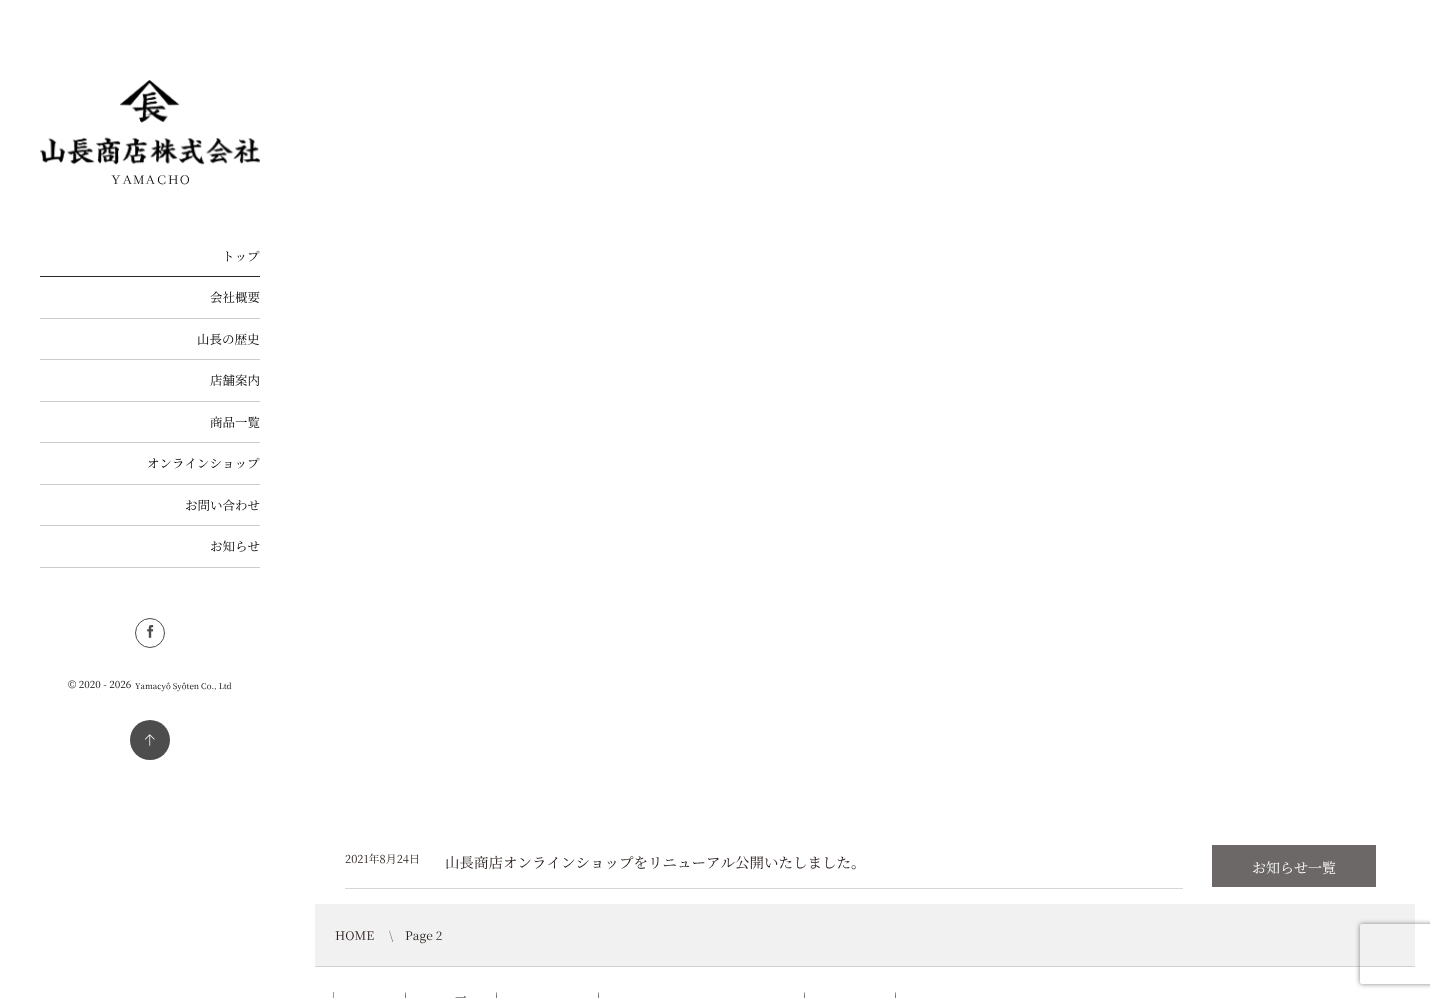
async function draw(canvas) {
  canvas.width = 1430;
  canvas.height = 998;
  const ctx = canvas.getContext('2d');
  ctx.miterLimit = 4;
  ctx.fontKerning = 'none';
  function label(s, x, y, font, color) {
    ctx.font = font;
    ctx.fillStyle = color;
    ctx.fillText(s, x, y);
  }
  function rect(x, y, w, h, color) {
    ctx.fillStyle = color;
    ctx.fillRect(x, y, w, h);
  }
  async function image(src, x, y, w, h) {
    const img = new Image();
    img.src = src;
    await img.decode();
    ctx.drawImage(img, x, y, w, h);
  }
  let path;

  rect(0, 0, 1430, 998, '#fff');
  await image('assets/img1.png', 40, 80, 220, 85);
  label('ＹＡＭＡＣＨＯ', 110, 184, '200 11.5px Noto Serif JP', '#000');
  label('トップ', 222, 261, '200 12.5px Noto Serif JP', '#000');
  rect(40, 276, 220, 1, '#292929');
  rect(40, 318, 220, 1, '#ccc');
  label('会社概要', 210, 302, '200 12.5px Noto Serif JP', '#000');
  rect(40, 359, 220, 1, '#ccc');
  label('山長の歴史', 197, 344, '200 12.5px Noto Serif JP', '#000');
  rect(40, 401, 220, 1, '#ccc');
  label('店舗案内', 210, 385, '200 12.5px Noto Serif JP', '#000');
  rect(40, 442, 220, 1, '#ccc');
  label('商品一覧', 210, 427, '200 12.5px Noto Serif JP', '#000');
  rect(40, 484, 220, 1, '#ccc');
  label('オンラインショップ', 147, 468, '200 12.5px Noto Serif JP', '#000');
  rect(40, 525, 220, 1, '#ccc');
  label('お問い合わせ', 185, 510, '200 12.5px Noto Serif JP', '#000');
  rect(40, 567, 220, 1, '#ccc');
  label('お知らせ', 210, 551, '200 12.5px Noto Serif JP', '#000');
  ctx.beginPath();
  ctx.arc(150, 633, 14.5, 0, 2 * Math.PI);
  ctx.strokeStyle = '#4d4d4d';
  ctx.stroke();
  await image('assets/img2.png', 147, 625, 7, 13);
  label('© 2020 - 2026', 68, 688, '200 10px Noto Serif JP', '#000');
  label('Yamacyô Syôten Co., Ltd', 135, 689, '200 8px Noto Serif JP', '#000');
  ctx.fillStyle = '#4d4d4d';
  ctx.beginPath();
  ctx.arc(150, 740, 20, 0, 2 * Math.PI);
  ctx.fill();
  await image('assets/img3.png', 144, 734, 11, 12);
  rect(345, 888, 838, 1, '#d6d6d6');
  label('2021年8月24日', 345, 863, '200 11px Noto Serif JP', '#231815');
  label('山長商店オンラインショップをリニューアル公開いたしました。', 445, 868, '200 14.5px Noto Serif JP', '#231815');
  rect(1212, 845, 164, 42, '#6d6868');
  label('お知らせ一覧', 1252, 873, '200 14px Noto Serif JP', '#fff');
  rect(315, 904, 1100, 62, '#f1f1f1');
  label('HOME', 335, 940, '200 12px Noto Serif JP', '#231815');
  label('\\', 389, 940, '200 12px Noto Serif JP', '#655d5b');
  label('Page 2', 405, 940, '200 12px Noto Serif JP', '#231815');
  ctx.save();
  path = new Path2D('M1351 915H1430V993H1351ZM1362 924H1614C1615 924 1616 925 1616 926V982C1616 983 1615 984 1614 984H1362C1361 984 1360 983 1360 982V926C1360 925 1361 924 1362 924Z');
  ctx.clip(path, 'evenodd');
  ctx.fillStyle = '#808080';
  ctx.filter = 'blur(2.5px)';
  ctx.beginPath();
  ctx.roundRect(1360, 924, 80, 60, 2);
  ctx.fill();
  ctx.filter = 'none';
  ctx.restore();
  rect(315, 966, 1100, 1, '#23181533');
  rect(333, 992, 1, 6, '#999');
  ctx.fillStyle = '#7b7473';
  ctx.beginPath();
  ctx.ellipse(405.5, 997, 0.5, 5, 0, 0, 2 * Math.PI);
  ctx.fill();
  label('一', 455, 1002, '200 11.5px Noto Serif JP', '#231815');
  ctx.fillStyle = '#7b7473';
  ctx.beginPath();
  ctx.ellipse(496.5, 997, 0.5, 5, 0, 0, 2 * Math.PI);
  ctx.fill();
  ctx.beginPath();
  ctx.ellipse(598.5, 997, 0.5, 5, 0, 0, 2 * Math.PI);
  ctx.fill();
  ctx.beginPath();
  ctx.ellipse(804.5, 997, 0.5, 5, 0, 0, 2 * Math.PI);
  ctx.fill();
  ctx.beginPath();
  ctx.ellipse(895.5, 997, 0.5, 5, 0, 0, 2 * Math.PI);
  ctx.fill();
}

draw(document.querySelector('canvas'));
